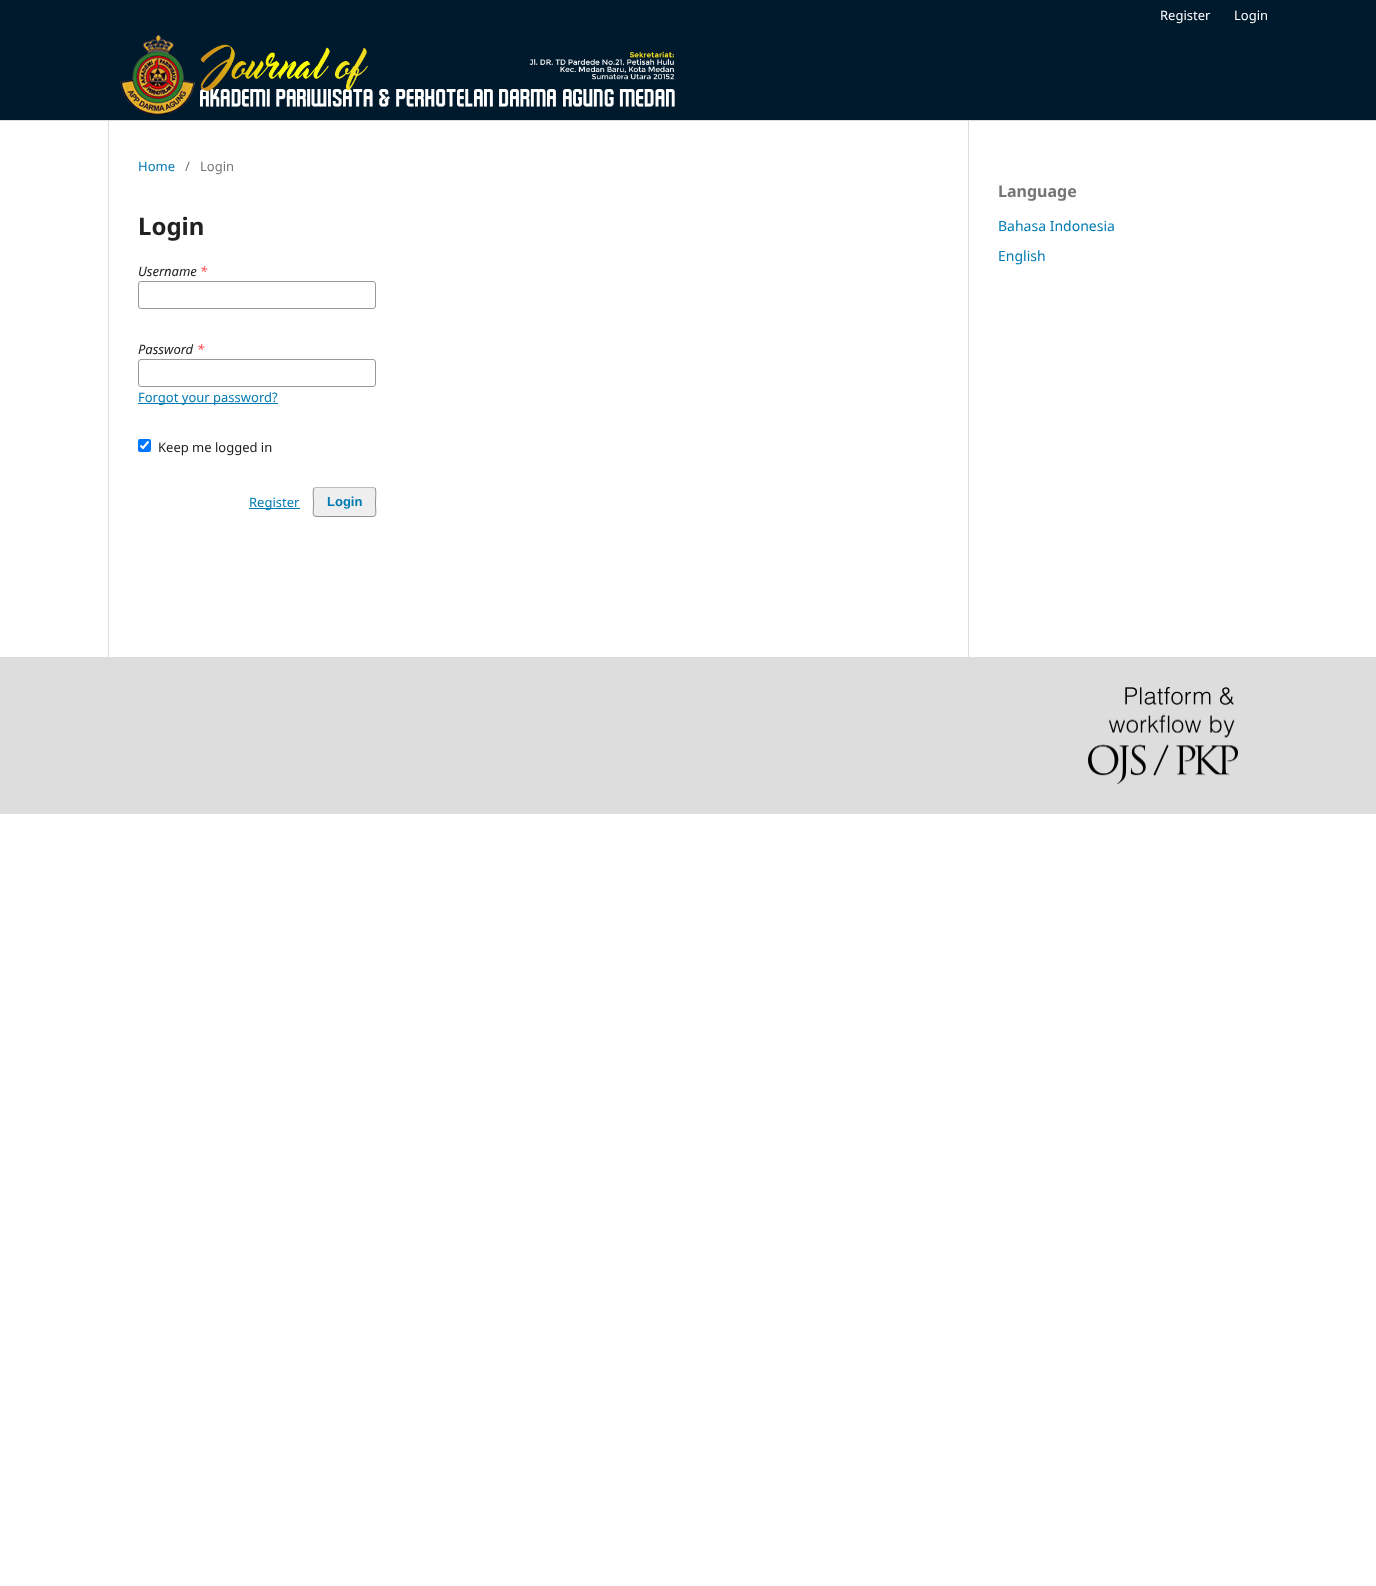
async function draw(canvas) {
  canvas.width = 1376;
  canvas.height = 1586;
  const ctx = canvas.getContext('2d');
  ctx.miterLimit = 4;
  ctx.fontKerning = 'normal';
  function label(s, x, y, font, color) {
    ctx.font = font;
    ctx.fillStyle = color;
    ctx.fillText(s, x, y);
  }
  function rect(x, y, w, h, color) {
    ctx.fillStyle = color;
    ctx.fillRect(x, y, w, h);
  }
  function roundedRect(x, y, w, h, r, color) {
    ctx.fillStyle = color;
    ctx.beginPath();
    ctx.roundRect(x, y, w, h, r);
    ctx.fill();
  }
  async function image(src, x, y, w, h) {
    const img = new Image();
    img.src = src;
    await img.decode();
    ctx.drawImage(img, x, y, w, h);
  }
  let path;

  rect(0, 0, 1376, 1586, '#fff');
  rect(0, 0, 1376, 120, '#001a2d');
  rect(0, 120, 1376, 1, '#ddd');
  label('Register', 1160, 20, '13px Noto Sans', '#fff');
  label('Login', 1234, 20, '13px Noto Sans', '#fff');
  await image('assets/img1.png', 120, 35, 555, 80);
  rect(108, 121, 1, 536, '#ddd');
  label('Home', 138, 171, '13px Noto Sans', '#007ab2');
  label('/', 185, 171, '13px Noto Sans', '#757575');
  label('Login', 200, 171, '13px Noto Sans', '#757575');
  label('Login', 138, 235, 'bold 24px Noto Sans', '#212121');
  label('Username', 138, 276, 'italic 13px Noto Sans', '#212121');
  label('*', 200, 276, 'italic 13px Noto Sans', '#ff4040');
  ctx.beginPath();
  ctx.roundRect(138.5, 281.5, 237, 27, 2.5);
  ctx.strokeStyle = '#999';
  ctx.stroke();
  label('Password', 138, 354, 'italic 13px Noto Sans', '#212121');
  label('*', 197, 354, 'italic 13px Noto Sans', '#ff4040');
  ctx.beginPath();
  ctx.roundRect(138.5, 359.5, 237, 27, 2.5);
  ctx.stroke();
  rect(138, 403, 140, 1, '#007ab2');
  label('Forgot your password?', 138, 402, '13px Noto Sans', '#007ab2');
  roundedRect(138, 439, 13, 13, 2, '#0075ff');
  path = new Path2D('M140.5 445.5L143 448L148.5 441.5');
  ctx.strokeStyle = '#fff';
  ctx.lineWidth = 2.1;
  ctx.stroke(path);
  label('Keep me logged in', 158, 452, '13px Noto Sans', '#212121');
  rect(249, 508, 51, 1, '#007ab2');
  label('Register', 249, 507, '13px Noto Sans', '#007ab2');
  roundedRect(313, 487, 63, 30, 3, '#eee');
  path = new Path2D('M314 488L316 487.5H373L375 488');
  ctx.strokeStyle = '#bbb';
  ctx.lineWidth = 1;
  ctx.stroke(path);
  path = new Path2D('M375 488C376.5 490 375.5 499.5 375.5 502C375.5 518 379 516.5 363.5 516.5H325.5C310 516.5 313.5 518 313.5 502C313.5 499.5 312.5 490 314 488');
  ctx.strokeStyle = '#00000066';
  ctx.stroke(path);
  label('Login', 327, 506, 'bold 13px Liberation Sans', '#007ab2');
  rect(968, 121, 1, 536, '#ddd');
  label('Language', 998, 197, 'bold 16px Noto Sans', '#757575');
  label('Bahasa Indonesia', 998, 231, '14px Noto Sans', '#007ab2');
  label('English', 998, 261, '14px Noto Sans', '#007ab2');
  rect(0, 657, 1376, 157, '#ddd');
  await image('assets/img2.png', 1088, 687, 150, 97);
}

draw(document.querySelector('canvas'));
